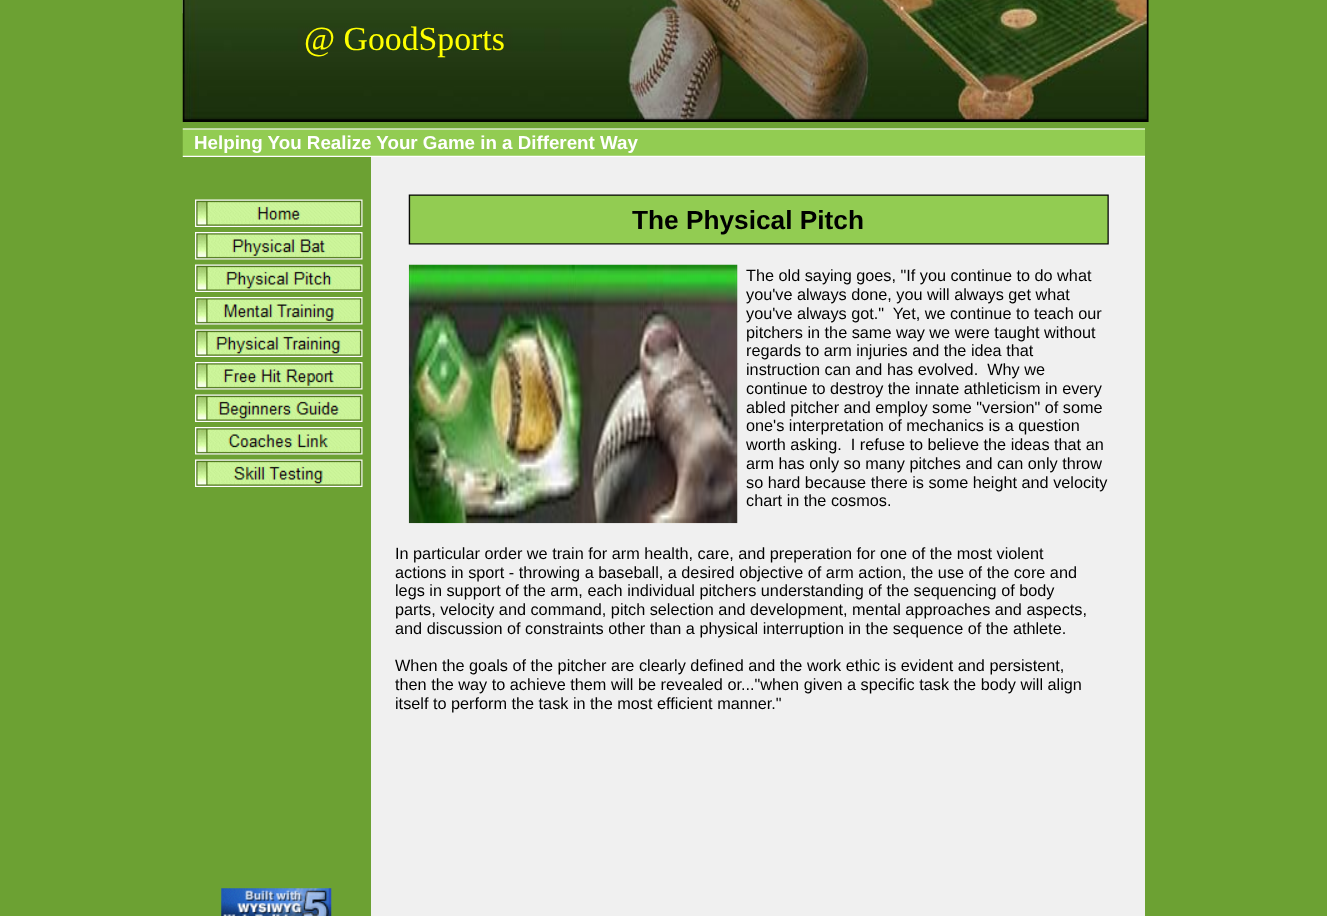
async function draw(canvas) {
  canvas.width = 1327;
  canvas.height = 916;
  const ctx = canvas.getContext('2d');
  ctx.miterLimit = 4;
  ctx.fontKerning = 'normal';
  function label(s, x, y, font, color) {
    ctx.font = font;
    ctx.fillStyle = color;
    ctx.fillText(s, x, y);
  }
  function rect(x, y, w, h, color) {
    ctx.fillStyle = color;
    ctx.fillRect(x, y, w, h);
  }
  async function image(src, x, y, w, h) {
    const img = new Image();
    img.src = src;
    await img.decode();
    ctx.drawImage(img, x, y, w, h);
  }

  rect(0, 0, 1327, 916, '#6ca133');
  await image('assets/img1.png', 182, 0, 1, 42);
  await image('assets/img2.png', 182, 0, 967, 122);
  label('@ GoodSports', 304, 50, '33.75px Liberation Serif', '#ff0');
  await image('assets/img3.png', 182, 128, 963, 29);
  label('Helping You Realize Your Game in a Different Way', 194, 149, 'bold 18.75px Liberation Sans', '#fff');
  rect(371, 157, 774, 759, '#f0f0f0');
  await image('assets/img4.png', 195, 199, 168, 28);
  await image('assets/img5.png', 195, 232, 168, 28);
  await image('assets/img6.png', 195, 264, 168, 28);
  await image('assets/img7.png', 195, 297, 168, 28);
  await image('assets/img8.png', 195, 329, 168, 28);
  await image('assets/img9.png', 195, 362, 168, 28);
  await image('assets/img10.png', 195, 394, 168, 28);
  await image('assets/img11.png', 195, 427, 168, 28);
  await image('assets/img12.png', 195, 459, 168, 28);
  await image('assets/img13.png', 408, 194, 701, 51);
  label('The Physical Pitch', 632, 229, 'bold 26.25px Liberation Sans', '#000');
  await image('assets/img14.png', 408, 264, 330, 260);
  label('The old saying goes, "If you continue to do what', 746, 281, '16.25px Liberation Sans', '#000');
  label('you\'ve always done, you will always get what', 746, 300, '16.25px Liberation Sans', '#000');
  label('you\'ve always got."  Yet, we continue to teach our', 746, 319, '16.25px Liberation Sans', '#000');
  label('pitchers in the same way we were taught without', 746, 338, '16.25px Liberation Sans', '#000');
  label('regards to arm injuries and the idea that', 746, 356, '16.25px Liberation Sans', '#000');
  label('instruction can and has evolved.  Why we', 746, 375, '16.25px Liberation Sans', '#000');
  label('continue to destroy the innate athleticism in every', 746, 394, '16.25px Liberation Sans', '#000');
  label('abled pitcher and employ some "version" of some', 746, 413, '16.25px Liberation Sans', '#000');
  label('one\'s interpretation of mechanics is a question', 746, 431, '16.25px Liberation Sans', '#000');
  label('worth asking.  I refuse to believe the ideas that an', 746, 450, '16.25px Liberation Sans', '#000');
  label('arm has only so many pitches and can only throw', 746, 469, '16.25px Liberation Sans', '#000');
  label('so hard because there is some height and velocity', 746, 488, '16.25px Liberation Sans', '#000');
  label('chart in the cosmos.', 746, 506, '16.25px Liberation Sans', '#000');
  label('In particular order we train for arm health, care, and preperation for one of the most violent', 395, 559, '16.25px Liberation Sans', '#000');
  label('actions in sport - throwing a baseball, a desired objective of arm action, the use of the core and', 395, 578, '16.25px Liberation Sans', '#000');
  label('legs in support of the arm, each individual pitchers understanding of the sequencing of body', 395, 596, '16.25px Liberation Sans', '#000');
  label('parts, velocity and command, pitch selection and development, mental approaches and aspects,', 395, 615, '16.25px Liberation Sans', '#000');
  label('and discussion of constraints other than a physical interruption in the sequence of the athlete.', 395, 634, '16.25px Liberation Sans', '#000');
  label('When the goals of the pitcher are clearly defined and the work ethic is evident and persistent,', 395, 671, '16.25px Liberation Sans', '#000');
  label('then the way to achieve them will be revealed or..."when given a specific task the body will align', 395, 690, '16.25px Liberation Sans', '#000');
  label('itself to perform the task in the most efficient manner."', 395, 709, '16.25px Liberation Sans', '#000');
  await image('assets/img15.png', 221, 888, 111, 28);
}

draw(document.querySelector('canvas'));
